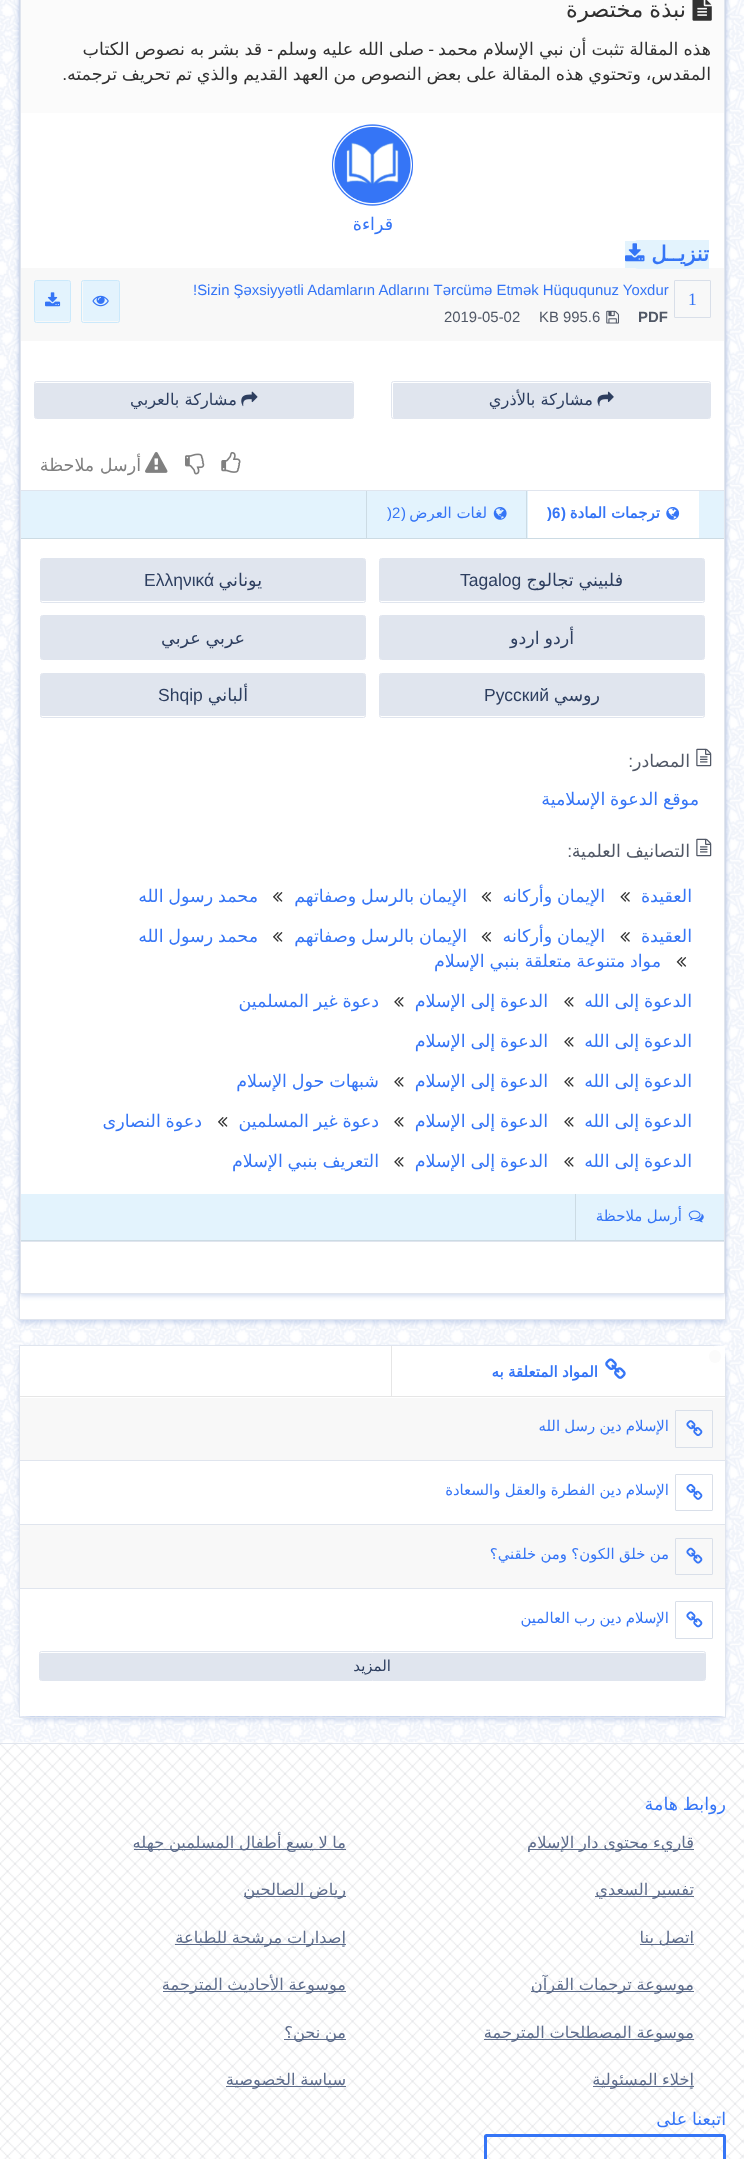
async function draw(canvas) {
  canvas.width = 744;
  canvas.height = 2159;
  const ctx = canvas.getContext('2d');
  ctx.miterLimit = 4;
  ctx.fontKerning = 'normal';
  function label(s, x, y, font, color) {
    ctx.font = font;
    ctx.fillStyle = color;
    ctx.fillText(s, x, y);
  }
  function rect(x, y, w, h, color) {
    ctx.fillStyle = color;
    ctx.fillRect(x, y, w, h);
  }
  function roundedRect(x, y, w, h, r, color) {
    ctx.fillStyle = color;
    ctx.beginPath();
    ctx.roundRect(x, y, w, h, r);
    ctx.fill();
  }
  async function image(src, x, y, w, h) {
    const img = new Image();
    img.src = src;
    await img.decode();
    ctx.drawImage(img, x, y, w, h);
  }
  let path;

  rect(0, 0, 744, 2159, '#fff');
  await image('assets/img1.png', 0, 0, 744, 1743);
  ctx.fillStyle = '#1d4fb333';
  ctx.filter = 'blur(2.5px)';
  ctx.beginPath();
  ctx.rect(19, -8, 707, 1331);
  ctx.fill();
  ctx.filter = 'none';
  rect(20, 113, 705, 1206, '#fff');
  ctx.strokeStyle = '#e0e5ee';
  ctx.strokeRect(19.5, -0.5, 706, 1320);
  ctx.save();
  path = new Path2D('M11 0H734V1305H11ZM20-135H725V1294H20Z');
  ctx.clip(path, 'evenodd');
  ctx.fillStyle = '#1d4fb333';
  ctx.filter = 'blur(2.5px)';
  ctx.beginPath();
  ctx.rect(20, -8, 705, 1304);
  ctx.fill();
  ctx.filter = 'none';
  ctx.restore();
  ctx.strokeRect(20.5, -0.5, 704, 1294);
  rect(21, 0, 703, 113, '#fbfbfb');
  await image('assets/img2.png', 692, 0, 20, 21);
  ctx.wordSpacing = '-1px';
  ctx.direction = 'rtl';
  label('نبذة مختصرة', 686, 17, '22.5px DejaVu Sans', '#313131');
  ctx.wordSpacing = '-0.5px';
  label('هذه المقالة تثبت أن نبي الإسلام محمد', 711, 55, '17.5px DejaVu Sans', '#313131');
  ctx.wordSpacing = '0px';
  label('-', 434, 55, '17.5px Liberation Sans', '#313131');
  ctx.wordSpacing = '-0.5px';
  label('صلى الله عليه وسلم', 424, 55, '17.5px DejaVu Sans', '#313131');
  ctx.wordSpacing = '0px';
  label('-', 273, 55, '17.5px Liberation Sans', '#313131');
  ctx.wordSpacing = '-0.5px';
  label('قد بشر به نصوص الكتاب', 262, 55, '17.5px DejaVu Sans', '#313131');
  ctx.wordSpacing = '-0.75px';
  label('المقدس، وتحتوي هذه المقالة على بعض النصوص من العهد القديم والذي تم تحريف ترجمته', 711, 80, '17.5px DejaVu Sans', '#313131');
  ctx.wordSpacing = '0px';
  label('.', 67, 80, '17.5px Liberation Sans', '#313131');
  await image('assets/img3.png', 332, 124, 81, 82);
  label('قراءة', 393, 230, '17.5px DejaVu Sans', '#3575f6');
  rect(21, 268, 703, 73, '#f8f8f8');
  ctx.fillStyle = '#e3f3fd';
  ctx.beginPath();
  ctx.roundRect(633, 240, 76, 29, [5, 0, 0, 5]);
  ctx.fill();
  ctx.beginPath();
  ctx.roundRect(625, 241, 33, 27, [0, 5, 5, 0]);
  ctx.fill();
  label('تنزيــل', 709, 261, 'bold 21px DejaVu Sans', '#3575f6');
  await image('assets/img4.png', 625, 243, 20, 19);
  ctx.beginPath();
  ctx.roundRect(674.5, 280.5, 36, 37, 0.5);
  ctx.strokeStyle = '#d9dfe9';
  ctx.stroke();
  ctx.direction = 'ltr';
  label('1', 688, 305, '17.5px Liberation Serif', '#3575f6');
  label('!Sizin Şəxsiyyətli Adamların Adlarını Tərcümə Etmək Hüququnuz Yoxdur', 193, 295, '14.9px Liberation Sans', '#3575f6');
  label('PDF', 638, 322, 'bold 14.9px Liberation Sans', '#515866');
  await image('assets/img5.png', 606, 310, 13, 14);
  label('KB 995.6', 539, 322, '14.9px Liberation Sans', '#515866');
  label('2019-05-02', 444, 322, '14.9px Liberation Sans', '#515866');
  roundedRect(83, 281, 36, 40, 1, '#e3f3fd');
  ctx.beginPath();
  ctx.roundRect(81.5, 280.5, 38, 42, 2);
  ctx.strokeStyle = '#cbe9fb';
  ctx.stroke();
  await image('assets/img6.png', 92, 295, 17, 12);
  roundedRect(35, 281, 35, 40, 1, '#e3f3fd');
  ctx.beginPath();
  ctx.roundRect(34.5, 280.5, 36, 42, 2);
  ctx.stroke();
  await image('assets/img7.png', 45, 292, 16, 15);
  roundedRect(393, 383, 317, 35, 1, '#e0e5ee');
  ctx.beginPath();
  ctx.roundRect(391.5, 381.5, 319, 37, 2);
  ctx.strokeStyle = '#e0e5ee';
  ctx.stroke();
  await image('assets/img8.png', 597, 391, 17, 16);
  ctx.direction = 'rtl';
  label('مشاركة بالأذري', 593, 405, '16.25px DejaVu Sans', '#2d3e5f');
  roundedRect(35, 383, 318, 35, 1, '#e0e5ee');
  ctx.beginPath();
  ctx.roundRect(34.5, 381.5, 319, 37, 2);
  ctx.stroke();
  await image('assets/img9.png', 241, 391, 17, 16);
  label('مشاركة بالعربي', 237, 405, '16.25px DejaVu Sans', '#2d3e5f');
  await image('assets/img10.png', 221, 452, 20, 21);
  await image('assets/img11.png', 185, 453, 20, 22);
  await image('assets/img12.png', 145, 452, 23, 21);
  label('أرسل ملاحظة', 141, 471, '17.5px DejaVu Sans', '#808080');
  rect(21, 491, 703, 47, '#e3f3fd');
  rect(21, 490, 703, 1, '#e0e5ee');
  rect(21, 538, 703, 1, '#ccdbe4');
  rect(528, 491, 171, 47, '#fff');
  rect(526, 491, 1, 47, '#ccdbe4');
  await image('assets/img13.png', 666, 507, 14, 13);
  label('ترجمات المادة', 660, 518, 'bold 15px DejaVu Sans', '#3575f6');
  label('(', 566, 518, 'bold 15px Liberation Sans', '#3575f6');
  ctx.direction = 'ltr';
  label(')6', 547, 518, 'bold 15px Liberation Sans', '#3575f6');
  rect(366, 491, 1, 47, '#ccdbe4');
  await image('assets/img14.png', 493, 507, 14, 13);
  ctx.direction = 'rtl';
  label('لغات العرض', 487, 518, '15px DejaVu Sans', '#3575f6');
  label('(', 406, 518, '15px Liberation Sans', '#3575f6');
  ctx.direction = 'ltr';
  label(')2', 387, 518, '15px Liberation Sans', '#3575f6');
  roundedRect(380, 559, 324, 42, 1, '#e0e5ee');
  ctx.beginPath();
  ctx.roundRect(379.5, 558.5, 325, 44, 2);
  ctx.stroke();
  ctx.wordSpacing = '-0.75px';
  ctx.direction = 'rtl';
  label('فلبيني تجالوج', 623, 586, '17.5px DejaVu Sans', '#2d3e5f');
  ctx.wordSpacing = '0px';
  ctx.direction = 'ltr';
  label('Tagalog', 460, 586, '17.5px Liberation Sans', '#2d3e5f');
  roundedRect(41, 559, 324, 42, 1, '#e0e5ee');
  ctx.beginPath();
  ctx.roundRect(40.5, 558.5, 325, 44, 2);
  ctx.stroke();
  ctx.direction = 'rtl';
  label('يوناني', 262, 586, '17.5px DejaVu Sans', '#2d3e5f');
  ctx.direction = 'ltr';
  label('Ελληνικά', 144, 586, '17.5px Liberation Sans', '#2d3e5f');
  roundedRect(380, 616, 324, 43, 1, '#e0e5ee');
  ctx.beginPath();
  ctx.roundRect(379.5, 615.5, 325, 44, 2);
  ctx.stroke();
  ctx.wordSpacing = '-0.75px';
  ctx.direction = 'rtl';
  label('أردو اردو', 574, 644, '17.5px DejaVu Sans', '#2d3e5f');
  roundedRect(41, 616, 324, 43, 1, '#e0e5ee');
  ctx.beginPath();
  ctx.roundRect(40.5, 615.5, 325, 44, 2);
  ctx.stroke();
  label('عربي عربي', 245, 644, '17.5px DejaVu Sans', '#2d3e5f');
  roundedRect(380, 674, 324, 42, 1, '#e0e5ee');
  ctx.beginPath();
  ctx.roundRect(379.5, 673.5, 325, 44, 2);
  ctx.stroke();
  ctx.wordSpacing = '0px';
  label('روسي', 600, 701, '17.5px DejaVu Sans', '#2d3e5f');
  ctx.direction = 'ltr';
  label('Русский', 484, 701, '17.5px Liberation Sans', '#2d3e5f');
  roundedRect(41, 674, 324, 42, 1, '#e0e5ee');
  ctx.beginPath();
  ctx.roundRect(40.5, 673.5, 325, 44, 2);
  ctx.stroke();
  ctx.direction = 'rtl';
  label('ألباني', 248, 701, '17.5px DejaVu Sans', '#2d3e5f');
  ctx.direction = 'ltr';
  label('Shqip', 158, 701, '17.5px Liberation Sans', '#2d3e5f');
  await image('assets/img15.png', 696, 748, 16, 19);
  ctx.direction = 'rtl';
  label('المصادر', 690, 767, '17.5px DejaVu Sans', '#515866');
  label(':', 633, 767, '17.5px Liberation Sans', '#515866');
  ctx.wordSpacing = '-0.75px';
  label('موقع الدعوة الإسلامية', 699, 805, '17.5px DejaVu Sans', '#3575f6');
  await image('assets/img15.png', 696, 838, 16, 19);
  label('التصانيف العلمية', 690, 857, '17.5px DejaVu Sans', '#515866');
  ctx.wordSpacing = '0px';
  label(':', 572, 857, '17.5px Liberation Sans', '#515866');
  label('العقيدة', 692, 902, '17.5px DejaVu Sans', '#3575f6');
  await image('assets/img16.png', 620, 892, 10, 10);
  ctx.wordSpacing = '-0.75px';
  label('الإيمان وأركانه', 605, 902, '17.5px DejaVu Sans', '#3575f6');
  await image('assets/img17.png', 481, 892, 11, 10);
  label('الإيمان بالرسل وصفاتهم', 467, 902, '17.5px DejaVu Sans', '#3575f6');
  await image('assets/img18.png', 273, 892, 10, 10);
  label('محمد رسول الله', 258, 902, '17.5px DejaVu Sans', '#3575f6');
  ctx.wordSpacing = '0px';
  label('العقيدة', 692, 942, '17.5px DejaVu Sans', '#3575f6');
  await image('assets/img16.png', 620, 932, 10, 10);
  ctx.wordSpacing = '-0.75px';
  label('الإيمان وأركانه', 605, 942, '17.5px DejaVu Sans', '#3575f6');
  await image('assets/img17.png', 481, 932, 11, 10);
  label('الإيمان بالرسل وصفاتهم', 467, 942, '17.5px DejaVu Sans', '#3575f6');
  await image('assets/img18.png', 273, 932, 10, 10);
  label('محمد رسول الله', 258, 942, '17.5px DejaVu Sans', '#3575f6');
  await image('assets/img17.png', 676, 957, 11, 10);
  label('مواد متنوعة متعلقة بنبي الإسلام', 661, 967, '17.5px DejaVu Sans', '#3575f6');
  label('الدعوة إلى الله', 692, 1007, '17.5px DejaVu Sans', '#3575f6');
  await image('assets/img19.png', 564, 997, 10, 10);
  label('الدعوة إلى الإسلام', 548, 1007, '17.5px DejaVu Sans', '#3575f6');
  await image('assets/img19.png', 394, 997, 10, 10);
  label('دعوة غير المسلمين', 379, 1007, '17.5px DejaVu Sans', '#3575f6');
  label('الدعوة إلى الله', 692, 1047, '17.5px DejaVu Sans', '#3575f6');
  await image('assets/img19.png', 564, 1037, 10, 10);
  label('الدعوة إلى الإسلام', 548, 1047, '17.5px DejaVu Sans', '#3575f6');
  label('الدعوة إلى الله', 692, 1087, '17.5px DejaVu Sans', '#3575f6');
  await image('assets/img19.png', 564, 1077, 10, 10);
  label('الدعوة إلى الإسلام', 548, 1087, '17.5px DejaVu Sans', '#3575f6');
  await image('assets/img19.png', 394, 1077, 10, 10);
  label('شبهات حول الإسلام', 379, 1087, '17.5px DejaVu Sans', '#3575f6');
  label('الدعوة إلى الله', 692, 1127, '17.5px DejaVu Sans', '#3575f6');
  await image('assets/img19.png', 564, 1117, 10, 10);
  label('الدعوة إلى الإسلام', 548, 1127, '17.5px DejaVu Sans', '#3575f6');
  await image('assets/img19.png', 394, 1117, 10, 10);
  label('دعوة غير المسلمين', 379, 1127, '17.5px DejaVu Sans', '#3575f6');
  await image('assets/img18.png', 218, 1117, 10, 10);
  label('دعوة النصارى', 202, 1127, '17.5px DejaVu Sans', '#3575f6');
  label('الدعوة إلى الله', 692, 1167, '17.5px DejaVu Sans', '#3575f6');
  await image('assets/img19.png', 564, 1157, 10, 10);
  label('الدعوة إلى الإسلام', 548, 1167, '17.5px DejaVu Sans', '#3575f6');
  await image('assets/img19.png', 394, 1157, 10, 10);
  label('التعريف بنبي الإسلام', 379, 1167, '17.5px DejaVu Sans', '#3575f6');
  rect(21, 1194, 703, 46, '#e3f3fd');
  rect(21, 1241, 703, 1, '#e0e5ee');
  rect(21, 1240, 703, 1, '#ccdbe4');
  rect(575, 1194, 1, 46, '#ccdbe4');
  await image('assets/img20.png', 688, 1210, 16, 13);
  ctx.wordSpacing = '-0.5px';
  label('أرسل ملاحظة', 682, 1221, '15px DejaVu Sans', '#3575f6');
  ctx.fillStyle = '#1d4fb333';
  ctx.filter = 'blur(2.5px)';
  ctx.beginPath();
  ctx.roundRect(19, 1348, 707, 372, 13);
  ctx.fill();
  ctx.filter = 'none';
  rect(20, 1346, 705, 370, '#fff');
  ctx.beginPath();
  ctx.roundRect(19.5, 1345.5, 706, 372, [0, 12.5, 0, 0]);
  ctx.stroke();
  rect(714, 1346, 11, 11, '#fff');
  roundedRect(709, 1350, 12, 13, 6, '#fbfbfb');
  rect(20, 1396, 705, 1, '#e6e6e6');
  rect(391, 1346, 1, 50, '#e6e6e6');
  await image('assets/img21.png', 605, 1358, 21, 21);
  label('المواد المتعلقة به', 598, 1377, 'bold 15px DejaVu Sans', '#3575f6');
  rect(20, 1398, 705, 62, '#f8f8f8');
  rect(20, 1460, 705, 1, '#e0e5ee');
  ctx.beginPath();
  ctx.roundRect(675.5, 1410.5, 37, 37, 0.5);
  ctx.strokeStyle = '#d9dfe9';
  ctx.stroke();
  await image('assets/img22.png', 686, 1420, 17, 17);
  ctx.save();
  ctx.beginPath();
  ctx.rect(33, 1410, 636, 28);
  ctx.clip();
  label('الإسلام دين رسل الله', 669, 1431, '14.9px DejaVu Sans', '#3575f6');
  ctx.restore();
  rect(20, 1524, 705, 1, '#e0e5ee');
  ctx.beginPath();
  ctx.roundRect(675.5, 1474.5, 37, 36, 0.5);
  ctx.stroke();
  await image('assets/img23.png', 686, 1483, 17, 17);
  ctx.save();
  ctx.beginPath();
  ctx.rect(33, 1474, 636, 27);
  ctx.clip();
  label('الإسلام دين الفطرة والعقل والسعادة', 669, 1495, '14.9px DejaVu Sans', '#3575f6');
  ctx.restore();
  rect(20, 1525, 705, 63, '#f8f8f8');
  rect(20, 1588, 705, 1, '#e0e5ee');
  ctx.beginPath();
  ctx.roundRect(675.5, 1538.5, 37, 36, 0.5);
  ctx.stroke();
  await image('assets/img24.png', 686, 1547, 17, 17);
  ctx.save();
  ctx.beginPath();
  ctx.rect(33, 1538, 636, 27);
  ctx.clip();
  label('من خلق الكون؟ ومن خلقني؟', 669, 1559, '14.9px DejaVu Sans', '#3575f6');
  ctx.restore();
  ctx.beginPath();
  ctx.roundRect(675.5, 1601.5, 37, 37, 0.5);
  ctx.stroke();
  await image('assets/img25.png', 686, 1611, 17, 17);
  ctx.save();
  ctx.beginPath();
  ctx.rect(33, 1601, 636, 28);
  ctx.clip();
  label('الإسلام دين رب العالمين', 669, 1623, '14.9px DejaVu Sans', '#3575f6');
  ctx.restore();
  roundedRect(40, 1653, 665, 27, 1, '#e0e5ee');
  ctx.beginPath();
  ctx.roundRect(39.5, 1651.5, 666, 29, 2);
  ctx.strokeStyle = '#e0e5ee';
  ctx.stroke();
  ctx.wordSpacing = '0px';
  label('المزيد', 391, 1671, '15px DejaVu Sans', '#2d3e5f');
  await image('assets/img26.png', 0, 1742, 744, 417);
  rect(0, 1743, 744, 1, '#e0e5ee');
  ctx.wordSpacing = '-0.75px';
  label('روابط هامة', 726, 1810, '17.5px DejaVu Sans', '#3575f6');
  rect(528, 1849, 166, 1, '#5e6d8c');
  ctx.wordSpacing = '-0.5px';
  label('قاريء محتوى دار الإسلام', 694, 1848, '16.25px DejaVu Sans', '#5e6d8c');
  rect(134, 1849, 212, 1, '#5e6d8c');
  label('ما لا يسع أطفال المسلمين جهله', 346, 1848, '16.25px DejaVu Sans', '#5e6d8c');
  rect(595, 1896, 99, 1, '#5e6d8c');
  label('تفسير السعدي', 694, 1895, '16.25px DejaVu Sans', '#5e6d8c');
  rect(244, 1896, 102, 1, '#5e6d8c');
  label('رياض الصالحين', 346, 1895, '16.25px DejaVu Sans', '#5e6d8c');
  rect(640, 1944, 54, 1, '#5e6d8c');
  label('اتصل بنا', 694, 1943, '16.25px DejaVu Sans', '#5e6d8c');
  rect(175, 1944, 171, 1, '#5e6d8c');
  label('إصدارات مرشحة للطباعة', 346, 1943, '16.25px DejaVu Sans', '#5e6d8c');
  rect(531, 1991, 163, 1, '#5e6d8c');
  label('موسوعة ترجمات القرآن', 694, 1990, '16.25px DejaVu Sans', '#5e6d8c');
  rect(163, 1991, 183, 1, '#5e6d8c');
  label('موسوعة الأحاديث المترجمة', 346, 1990, '16.25px DejaVu Sans', '#5e6d8c');
  rect(484, 2039, 210, 1, '#5e6d8c');
  label('موسوعة المصطلحات المترجمة', 694, 2038, '16.25px DejaVu Sans', '#5e6d8c');
  rect(284, 2039, 62, 1, '#5e6d8c');
  label('من نحن؟', 346, 2038, '16.25px DejaVu Sans', '#5e6d8c');
  rect(593, 2086, 101, 1, '#5e6d8c');
  label('إخلاء المسئولية', 694, 2085, '16.25px DejaVu Sans', '#5e6d8c');
  rect(226, 2086, 120, 1, '#5e6d8c');
  label('سياسة الخصوصية', 346, 2085, '16.25px DejaVu Sans', '#5e6d8c');
  ctx.wordSpacing = '-0.75px';
  label('اتبعنا على', 726, 2125, '17.5px DejaVu Sans', '#3575f6');
  ctx.beginPath();
  ctx.roundRect(485.5, 2135.5, 239, 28, 1);
  ctx.strokeStyle = '#3575f6';
  ctx.lineWidth = 3;
  ctx.stroke();
}

draw(document.querySelector('canvas'));
